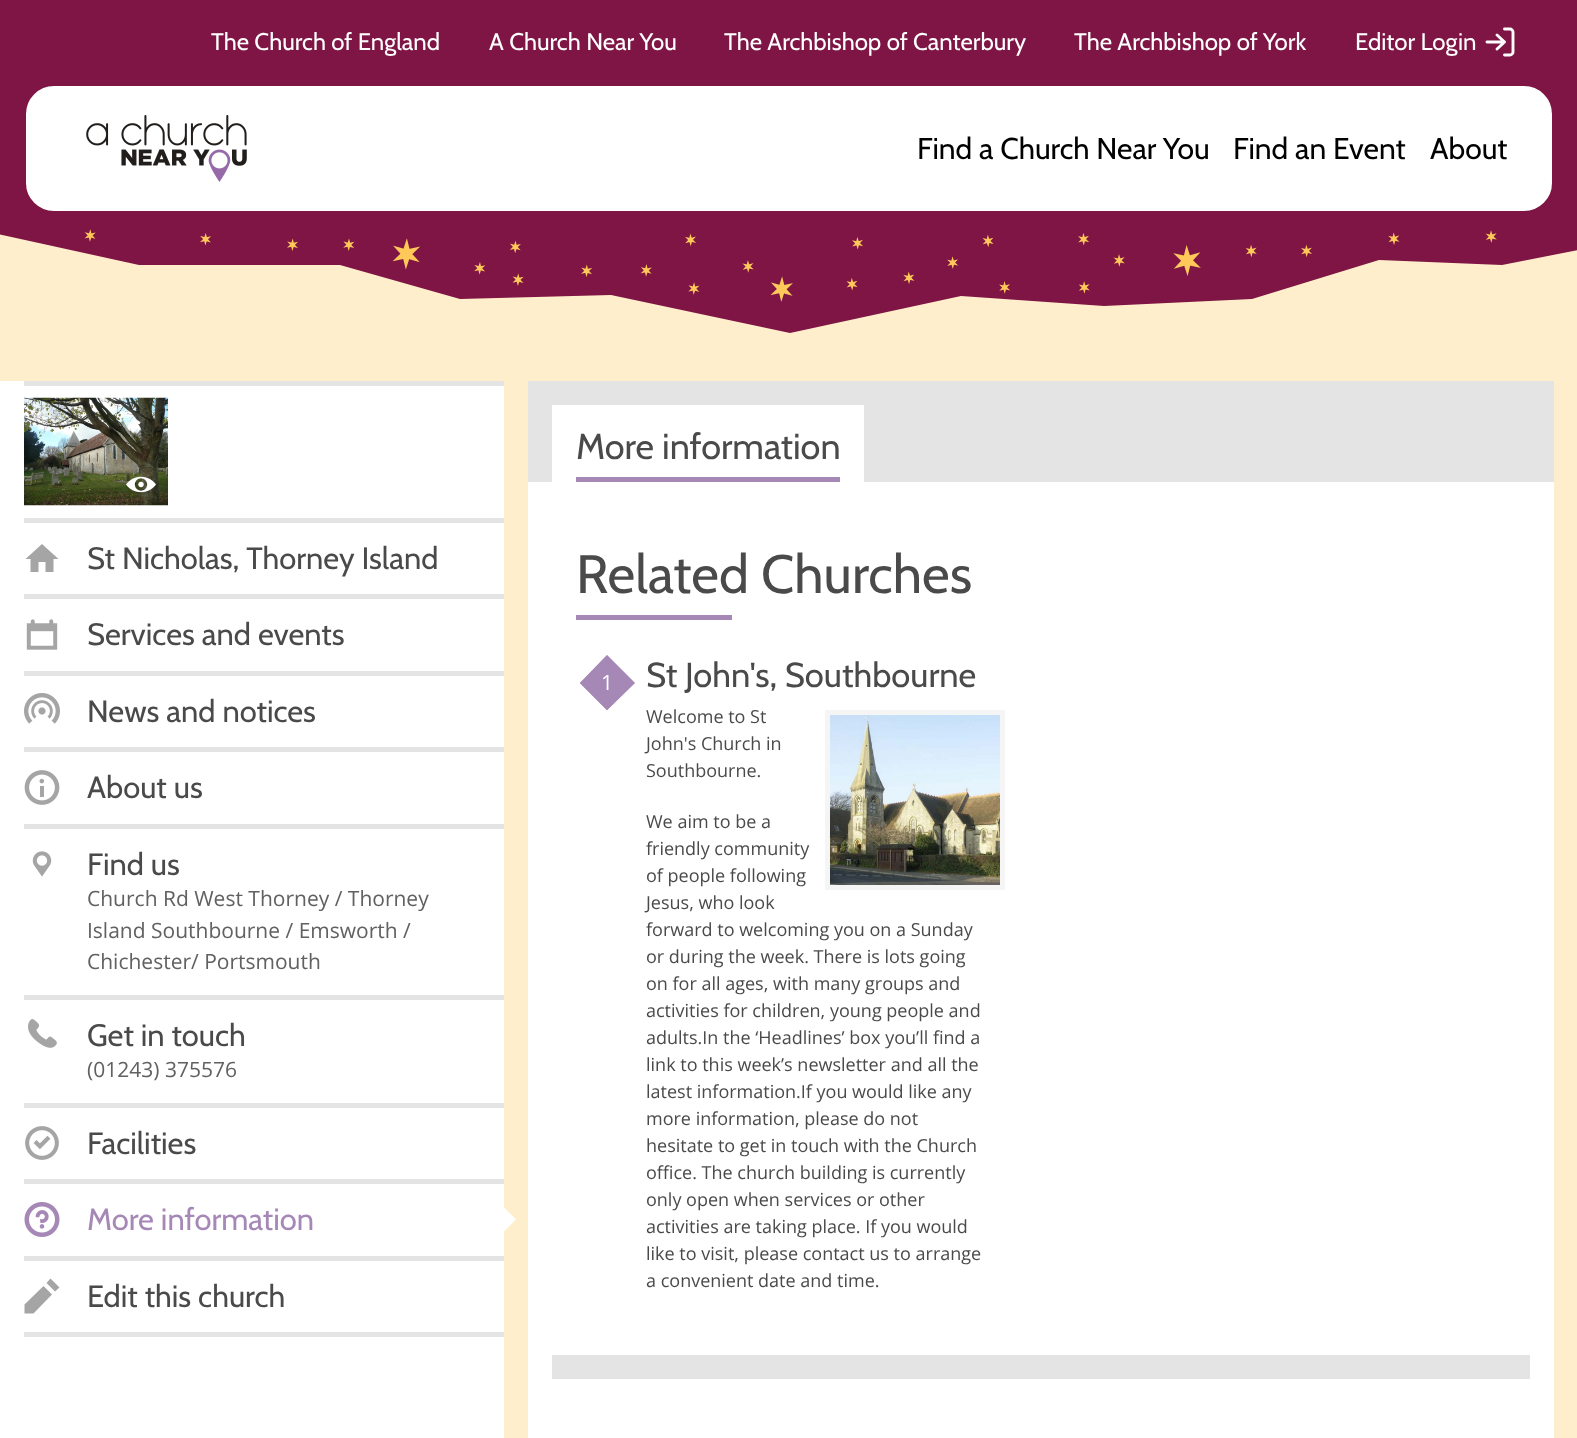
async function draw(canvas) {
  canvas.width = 1577;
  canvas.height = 1438;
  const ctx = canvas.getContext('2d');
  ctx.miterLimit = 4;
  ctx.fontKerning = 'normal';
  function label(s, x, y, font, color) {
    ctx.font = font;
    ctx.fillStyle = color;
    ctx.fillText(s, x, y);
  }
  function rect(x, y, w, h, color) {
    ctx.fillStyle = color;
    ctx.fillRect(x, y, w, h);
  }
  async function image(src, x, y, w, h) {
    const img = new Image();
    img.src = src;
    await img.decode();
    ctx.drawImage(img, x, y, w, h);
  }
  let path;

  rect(0, 0, 1577, 1438, '#fec');
  rect(0, 0, 1577, 193, '#7e1544');
  label('The Church of England', 211, 50, '24px Cabin', '#fff');
  label('A Church Near You', 489, 50, '24px Cabin', '#fff');
  label('The Archbishop of Canterbury', 724, 50, '24px Cabin', '#fff');
  label('The Archbishop of York', 1074, 50, '24px Cabin', '#fff');
  label('Editor Login', 1355, 50, '24px Cabin', '#fff');
  path = new Path2D('M1504.5 29H1510C1511.5 29 1513 30.5 1513 32V52C1513 53.5 1511.5 55 1510 55H1504.5M1497 49L1504.5 42L1497 35M1504.5 42H1487');
  ctx.strokeStyle = '#fff';
  ctx.lineWidth = 2.9;
  ctx.lineCap = 'round';
  ctx.lineJoin = 'round';
  ctx.stroke(path);
  ctx.fillStyle = '#7e1544';
  path = new Path2D('M-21 230L-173 233L-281 193H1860L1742 242L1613 243L1502 265L1379 260L1252 299L1104 306L961 296L790 333L611 295L460 299L340 265H139Z');
  ctx.fill(path);
  ctx.fillStyle = '#fff';
  ctx.beginPath();
  ctx.roundRect(25, 85, 1528, 127, 29);
  ctx.fill();
  ctx.strokeStyle = '#7e1544';
  ctx.lineWidth = 2;
  ctx.lineJoin = 'miter';
  ctx.stroke();
  await image('assets/img1.png', 86, 115, 161, 67);
  label('Find a Church Near You', 917, 159, '30px Cabin', '#000');
  label('Find an Event', 1233, 159, '30px Cabin', '#000');
  label('About', 1430, 159, '30px Cabin', '#000');
  await image('assets/img2.png', 84, 229, 1413, 73);
  rect(0, 381, 504, 1057, '#fff');
  rect(24, 381, 480, 5, '#e4e4e4');
  rect(24, 518, 480, 5, '#e4e4e4');
  await image('assets/img3.png', 24, 397, 144, 109);
  await image('assets/img4.png', 126, 476, 30, 17);
  ctx.fillStyle = '#a5a5a5';
  path = new Path2D('M38.5 572H30.5V559H25.5L42 544L58.5 559H53.5V572H45.5V562H38.5Z');
  ctx.fill(path);
  label('St Nicholas, Thorney Island', 87, 569, '30.9px Cabin', '#4a4a4a');
  rect(24, 594, 480, 5, '#e4e4e4');
  await image('assets/img5.png', 26, 619, 32, 31);
  label('Services and events', 87, 645, '30.9px Cabin', '#4a4a4a');
  rect(24, 671, 480, 5, '#e4e4e4');
  await image('assets/img6.png', 24, 693, 36, 31);
  label('News and notices', 87, 722, '30.9px Cabin', '#4a4a4a');
  rect(24, 747, 480, 5, '#e4e4e4');
  await image('assets/img7.png', 24, 770, 36, 35);
  label('About us', 87, 798, '30.9px Cabin', '#4a4a4a');
  rect(24, 824, 480, 5, '#e4e4e4');
  await image('assets/img8.png', 32, 851, 20, 26);
  label('Find us', 87, 875, '30.9px Cabin', '#4a4a4a');
  label('Church Rd West Thorney / Thorney', 87, 906, '21px Open Sans', '#616161');
  label('Island Southbourne / Emsworth /', 87, 938, '21px Open Sans', '#616161');
  label('Chichester/ Portsmouth', 87, 969, '21px Open Sans', '#616161');
  rect(24, 995, 480, 5, '#e4e4e4');
  await image('assets/img9.png', 28, 1019, 29, 29);
  label('Get in touch', 87, 1046, '30.9px Cabin', '#4a4a4a');
  label('(01243) 375576', 87, 1077, '21px Open Sans', '#616161');
  rect(24, 1103, 480, 5, '#e4e4e4');
  await image('assets/img10.png', 25, 1126, 34, 34);
  label('Facilities', 87, 1154, '30.9px Cabin', '#4a4a4a');
  rect(24, 1179, 480, 5, '#e4e4e4');
  await image('assets/img11.png', 24, 1202, 36, 35);
  label('More information', 87, 1230, '30.9px Cabin', '#a688b7');
  ctx.fillStyle = '#fff';
  path = new Path2D('M504 1231.5V1207.5L516 1219.5Z');
  ctx.fill(path);
  rect(24, 1256, 480, 5, '#e4e4e4');
  rect(24, 1332, 480, 5, '#e4e4e4');
  ctx.fillStyle = '#a5a5a5';
  path = new Path2D('M24.5 1304.5V1313.5H33.5L52 1294.5L43.5 1286Z');
  ctx.fill(path);
  path = new Path2D('M46.5 1283L50.5 1278.5L59.5 1287.5L55 1291.5Z');
  ctx.fill(path);
  label('Edit this church', 87, 1307, '30.9px Cabin', '#4a4a4a');
  rect(528, 482, 1026, 956, '#fff');
  rect(528, 381, 1026, 101, '#e4e4e4');
  rect(552, 405, 312, 77, '#fff');
  rect(576, 477, 264, 5, '#a688b7');
  label('More information', 576, 459, '36px Cabin', '#4a4a4a');
  label('Related Churches', 576, 593, '54px Cabin', '#4a4a4a');
  rect(576, 615, 156, 5, '#a688b7');
  path = new Path2D('M580 683L607 655L635 683L607 710Z');
  ctx.fill(path);
  path = new Path2D('M583 683L607 658.5L631.5 683L607 707Z');
  ctx.strokeStyle = '#a688b7';
  ctx.lineWidth = 4.5;
  ctx.lineCap = 'butt';
  ctx.stroke(path);
  label('1', 601, 690, '21px Open Sans', '#fff');
  label('St John\'s, Southbourne', 646, 687, '34.5px Cabin', '#4a4a4a');
  label('Welcome to St', 646, 723, '18px Open Sans', '#4a4a4a');
  label('John\'s Church in', 646, 750, '18px Open Sans', '#4a4a4a');
  label('Southbourne.', 646, 777, '18px Open Sans', '#4a4a4a');
  await image('assets/img12.png', 830, 715, 170, 170);
  ctx.strokeStyle = '#f5f5f5';
  ctx.lineWidth = 5;
  ctx.strokeRect(827.5, 712.5, 175, 175);
  label('We aim to be a', 646, 828, '18px Open Sans', '#4a4a4a');
  label('friendly community', 646, 855, '18px Open Sans', '#4a4a4a');
  label('of people following', 646, 882, '18px Open Sans', '#4a4a4a');
  label('Jesus, who look', 646, 909, '18px Open Sans', '#4a4a4a');
  label('forward to welcoming you on a Sunday', 646, 936, '18px Open Sans', '#4a4a4a');
  label('or during the week. There is lots going', 646, 963, '18px Open Sans', '#4a4a4a');
  label('on for all ages, with many groups and', 646, 990, '18px Open Sans', '#4a4a4a');
  label('activities for children, young people and', 646, 1017, '18px Open Sans', '#4a4a4a');
  label('adults.In the ‘Headlines’ box you’ll find a', 646, 1044, '18px Open Sans', '#4a4a4a');
  label('link to this week’s newsletter and all the', 646, 1071, '18px Open Sans', '#4a4a4a');
  label('latest information.If you would like any', 646, 1098, '18px Open Sans', '#4a4a4a');
  label('more information, please do not', 646, 1125, '18px Open Sans', '#4a4a4a');
  label('hesitate to get in touch with the Church', 646, 1152, '18px Open Sans', '#4a4a4a');
  label('office. The church building is currently', 646, 1179, '18px Open Sans', '#4a4a4a');
  label('only open when services or other', 646, 1206, '18px Open Sans', '#4a4a4a');
  label('activities are taking place. If you would', 646, 1233, '18px Open Sans', '#4a4a4a');
  label('like to visit, please contact us to arrange', 646, 1260, '18px Open Sans', '#4a4a4a');
  label('a convenient date and time.', 646, 1287, '18px Open Sans', '#4a4a4a');
  rect(552, 1355, 978, 24, '#e4e4e4');
}

draw(document.querySelector('canvas'));
